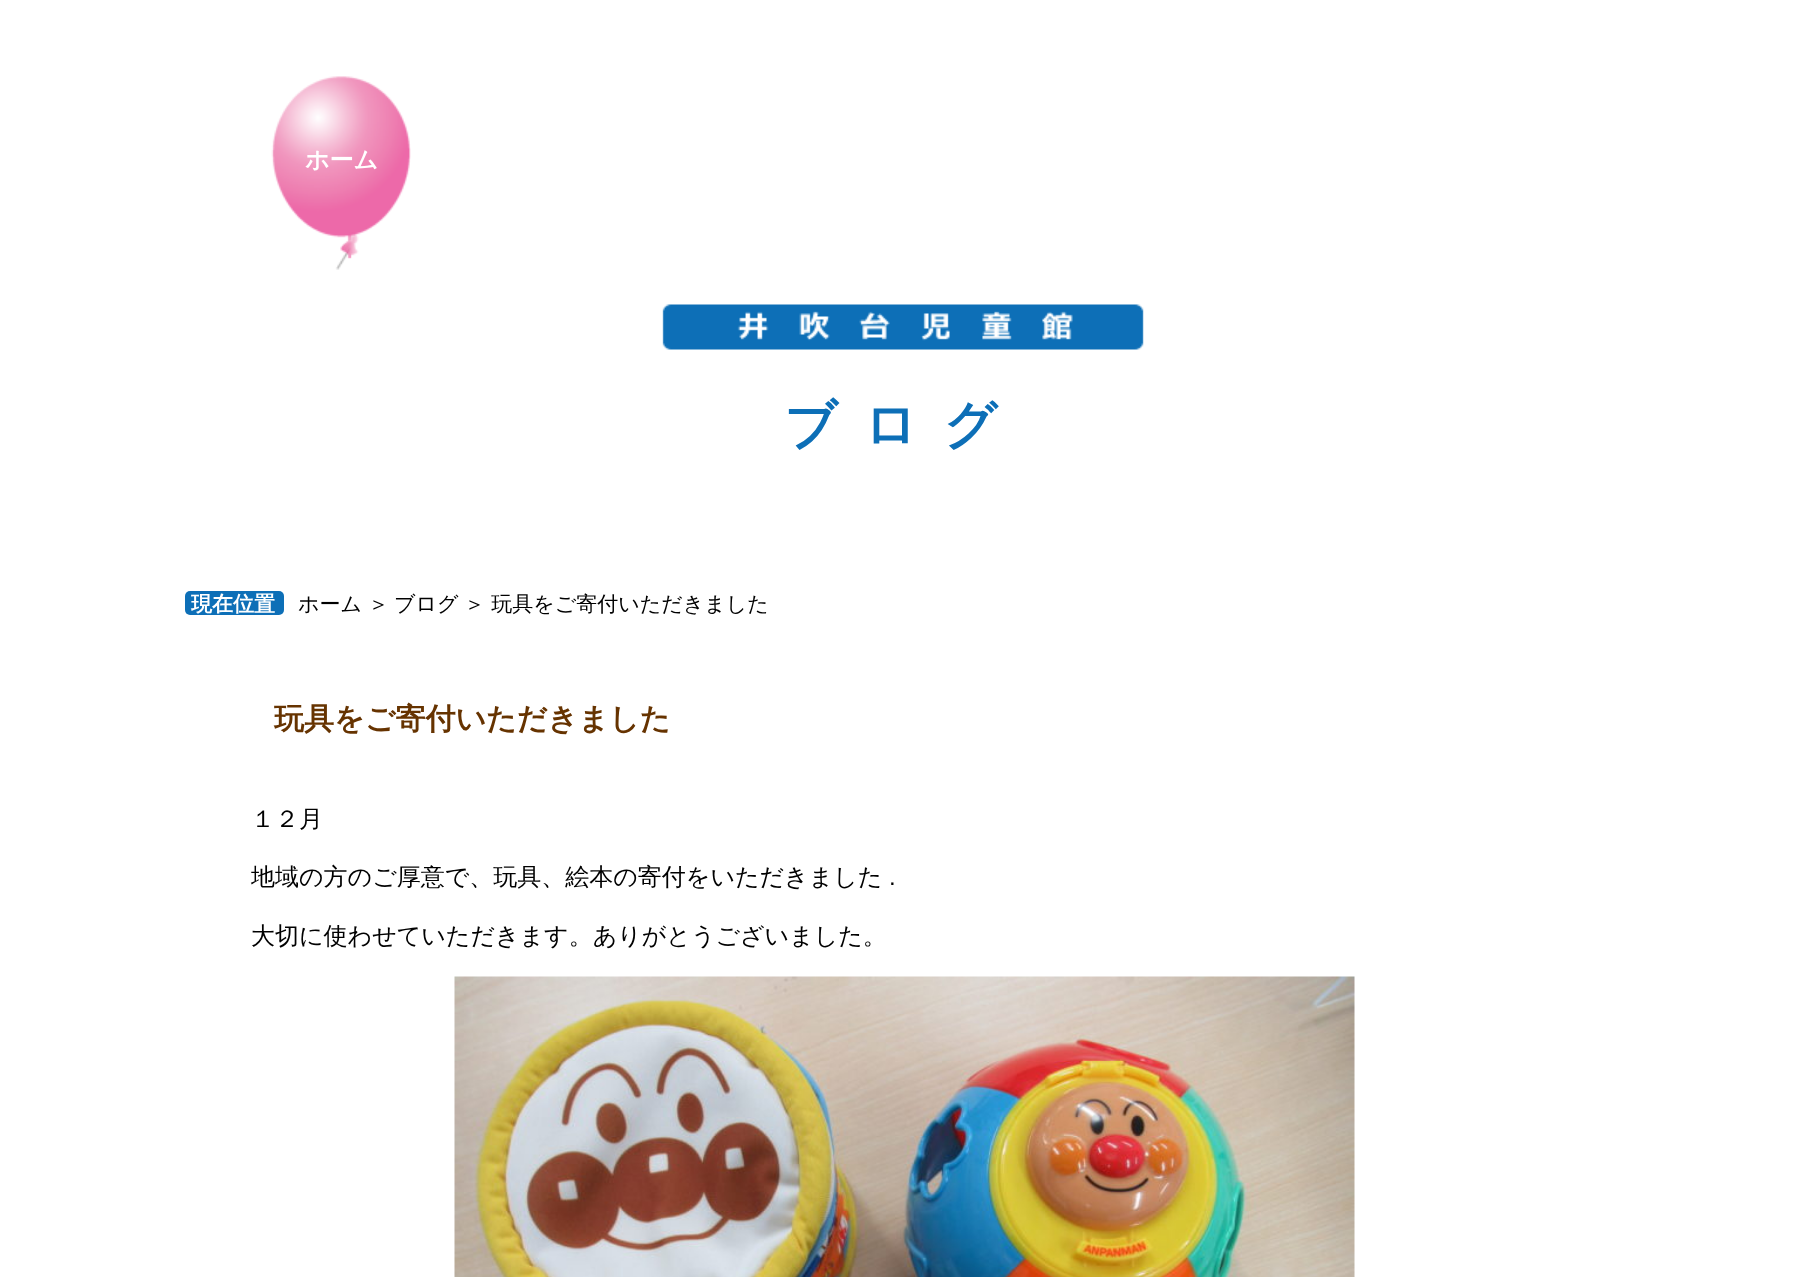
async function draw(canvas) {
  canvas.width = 1807;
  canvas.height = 1277;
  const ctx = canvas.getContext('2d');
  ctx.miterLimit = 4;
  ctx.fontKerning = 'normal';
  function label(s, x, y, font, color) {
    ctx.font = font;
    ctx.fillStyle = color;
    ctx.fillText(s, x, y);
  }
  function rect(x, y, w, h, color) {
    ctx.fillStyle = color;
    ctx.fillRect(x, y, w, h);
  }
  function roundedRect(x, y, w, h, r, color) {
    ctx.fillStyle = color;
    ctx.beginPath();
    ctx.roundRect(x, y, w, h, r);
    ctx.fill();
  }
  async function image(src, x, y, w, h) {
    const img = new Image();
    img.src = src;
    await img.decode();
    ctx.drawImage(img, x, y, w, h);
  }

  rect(0, 0, 1807, 1277, '#fff');
  await image('assets/img1.png', 271, 76, 140, 194);
  label('ホーム', 305, 168, 'bold 24px WenQuanYi Zen Hei', '#fff');
  await image('assets/img2.png', 662, 304, 482, 46);
  ctx.letterSpacing = '26px';
  label('ブログ', 784, 443, 'bold 52.5px WenQuanYi Zen Hei', '#0d6fb7');
  roundedRect(185, 591, 99, 24, 5, '#0d6fb7');
  ctx.letterSpacing = '0px';
  label('現在位置', 191, 611, 'bold 21px WenQuanYi Zen Hei', '#fff');
  label('ホーム', 298, 611, '500 21px WenQuanYi Zen Hei', '#000');
  label('＞', 368, 611, '500 21px WenQuanYi Zen Hei', '#000');
  label('ブログ', 394, 611, '500 21px WenQuanYi Zen Hei', '#000');
  label('＞ 玩具をご寄付いただきました', 464, 611, '500 21px WenQuanYi Zen Hei', '#000');
  label('玩具をご寄付いただきました', 274, 729, 'bold 30px WenQuanYi Zen Hei', '#630');
  label('１２月', 251, 827, '500 24px WenQuanYi Zen Hei', '#000');
  label('地域の方のご厚意で、玩具、絵本の寄付をいただきました', 251, 885, '500 24px WenQuanYi Zen Hei', '#000');
  label('.', 889, 885, '24px Liberation Sans', '#000');
  label('大切に使わせていただきます。ありがとうございました。', 251, 944, '500 24px WenQuanYi Zen Hei', '#000');
  await image('assets/img3.png', 454, 976, 901, 301);
}

draw(document.querySelector('canvas'));
